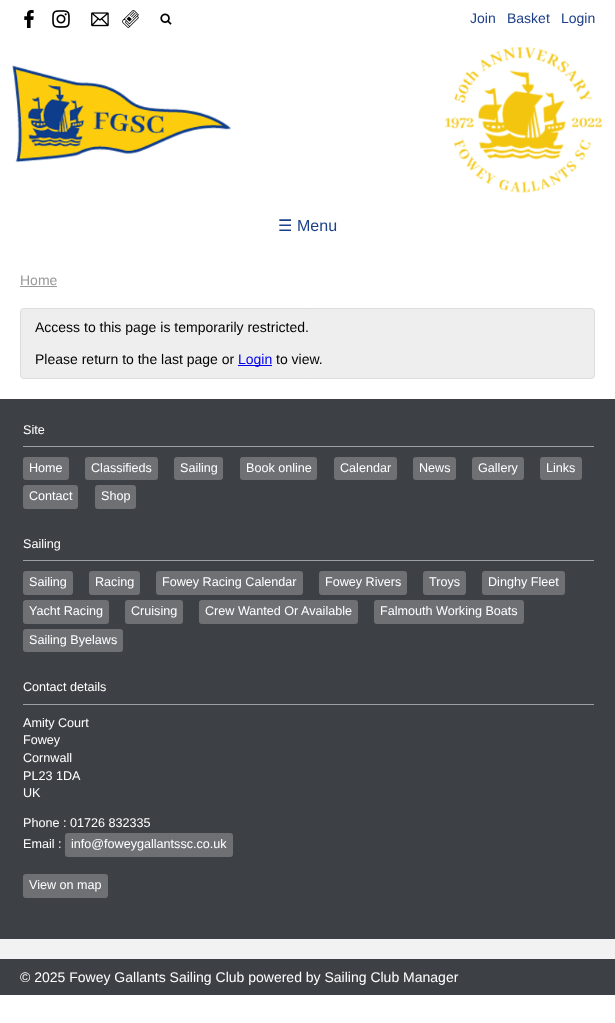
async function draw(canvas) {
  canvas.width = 615;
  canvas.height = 1023;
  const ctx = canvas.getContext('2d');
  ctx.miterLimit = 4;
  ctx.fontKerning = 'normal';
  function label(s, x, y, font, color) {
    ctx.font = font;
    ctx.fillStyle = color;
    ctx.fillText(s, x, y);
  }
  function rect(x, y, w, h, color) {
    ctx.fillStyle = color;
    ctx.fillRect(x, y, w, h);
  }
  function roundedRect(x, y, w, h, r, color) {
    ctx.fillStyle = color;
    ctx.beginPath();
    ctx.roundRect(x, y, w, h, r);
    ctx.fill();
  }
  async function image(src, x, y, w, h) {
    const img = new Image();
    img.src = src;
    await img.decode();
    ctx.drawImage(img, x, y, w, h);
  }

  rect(0, 0, 615, 1023, '#fff');
  await image('assets/img1.png', 24, 10, 10, 18);
  await image('assets/img2.png', 52, 10, 18, 18);
  await image('assets/img3.png', 91, 12, 18, 15);
  await image('assets/img4.png', 122, 10, 17, 18);
  await image('assets/img5.png', 160, 13, 12, 12);
  label('Join', 470, 23, '14px Liberation Sans', '#1c3f89');
  label('Basket', 507, 23, '14px Liberation Sans', '#1c3f89');
  label('Login', 561, 23, '14px Liberation Sans', '#1c3f89');
  await image('assets/img6.png', 12, 47, 590, 146);
  label('☰', 278, 231, '16px DejaVu Sans', '#1c3f89');
  label('Menu', 297, 231, '16px Liberation Sans', '#1c3f89');
  label('Home', 20, 285, '14px Liberation Sans', '#969899');
  rect(20, 286, 37, 1, '#969899');
  ctx.fillStyle = '#eee';
  ctx.beginPath();
  ctx.roundRect(20.5, 308.5, 574, 70, 3.5);
  ctx.fill();
  ctx.strokeStyle = '#ddd';
  ctx.stroke();
  label('Access to this page is temporarily restricted.', 35, 332, '14px Liberation Sans', '#000');
  label('Please return to the last page or', 35, 364, '14px Liberation Sans', '#000');
  rect(238, 365, 34, 1, '#00e');
  label('Login', 238, 364, '14px Liberation Sans', '#00e');
  label('to view.', 276, 364, '14px Liberation Sans', '#000');
  rect(0, 399, 615, 540, '#3d4045');
  rect(23, 446, 571, 1, '#9ea0a2');
  label('Site', 23, 434, '12.6px Liberation Sans', '#fff');
  roundedRect(23, 457, 46, 23, 3, '#6e7074');
  label('Home', 29, 472, '12.6px Liberation Sans', '#fff');
  roundedRect(85, 457, 73, 23, 3, '#6e7074');
  label('Classifieds', 91, 472, '12.6px Liberation Sans', '#fff');
  roundedRect(174, 457, 49, 23, 3, '#6e7074');
  label('Sailing', 180, 472, '12.6px Liberation Sans', '#fff');
  roundedRect(240, 457, 77, 23, 3, '#6e7074');
  label('Book online', 246, 472, '12.6px Liberation Sans', '#fff');
  roundedRect(334, 457, 63, 23, 3, '#6e7074');
  label('Calendar', 340, 472, '12.6px Liberation Sans', '#fff');
  roundedRect(413, 457, 43, 23, 3, '#6e7074');
  label('News', 419, 472, '12.6px Liberation Sans', '#fff');
  roundedRect(472, 457, 52, 23, 3, '#6e7074');
  label('Gallery', 478, 472, '12.6px Liberation Sans', '#fff');
  roundedRect(540, 457, 42, 23, 3, '#6e7074');
  label('Links', 546, 472, '12.6px Liberation Sans', '#fff');
  roundedRect(23, 485, 55, 24, 3, '#6e7074');
  label('Contact', 29, 500, '12.6px Liberation Sans', '#fff');
  roundedRect(95, 485, 41, 24, 3, '#6e7074');
  label('Shop', 101, 500, '12.6px Liberation Sans', '#fff');
  rect(23, 560, 571, 1, '#9ea0a2');
  label('Sailing', 23, 548, '12.6px Liberation Sans', '#fff');
  roundedRect(23, 571, 50, 24, 3, '#6e7074');
  label('Sailing', 29, 586, '12.6px Liberation Sans', '#fff');
  roundedRect(89, 571, 51, 24, 3, '#6e7074');
  label('Racing', 95, 586, '12.6px Liberation Sans', '#fff');
  roundedRect(156, 571, 147, 24, 3, '#6e7074');
  label('Fowey Racing Calendar', 162, 586, '12.6px Liberation Sans', '#fff');
  roundedRect(319, 571, 88, 24, 3, '#6e7074');
  label('Fowey Rivers', 325, 586, '12.6px Liberation Sans', '#fff');
  roundedRect(423, 571, 43, 24, 3, '#6e7074');
  label('Troys', 429, 586, '12.6px Liberation Sans', '#fff');
  roundedRect(482, 571, 83, 24, 3, '#6e7074');
  label('Dinghy Fleet', 488, 586, '12.6px Liberation Sans', '#fff');
  roundedRect(23, 600, 86, 24, 3, '#6e7074');
  label('Yacht Racing', 29, 615, '12.6px Liberation Sans', '#fff');
  roundedRect(125, 600, 58, 24, 3, '#6e7074');
  label('Cruising', 131, 615, '12.6px Liberation Sans', '#fff');
  roundedRect(199, 600, 159, 24, 3, '#6e7074');
  label('Crew Wanted Or Available', 205, 615, '12.6px Liberation Sans', '#fff');
  roundedRect(374, 600, 150, 24, 3, '#6e7074');
  label('Falmouth Working Boats', 380, 615, '12.6px Liberation Sans', '#fff');
  roundedRect(23, 629, 100, 23, 3, '#6e7074');
  label('Sailing Byelaws', 29, 644, '12.6px Liberation Sans', '#fff');
  rect(23, 704, 571, 1, '#9ea0a2');
  label('Contact details', 23, 691, '12.6px Liberation Sans', '#fff');
  label('Amity Court', 23, 727, '12.6px Liberation Sans', '#fff');
  label('Fowey', 23, 744, '12.6px Liberation Sans', '#fff');
  label('Cornwall', 23, 762, '12.6px Liberation Sans', '#fff');
  label('PL23 1DA', 23, 780, '12.6px Liberation Sans', '#fff');
  label('UK', 23, 797, '12.6px Liberation Sans', '#fff');
  label('Phone : 01726 832335', 23, 827, '12.6px Liberation Sans', '#fff');
  label('Email :', 23, 848, '12.6px Liberation Sans', '#fff');
  roundedRect(65, 833, 168, 24, 3, '#6e7074');
  label('info@foweygallantssc.co.uk', 71, 848, '12.6px Liberation Sans', '#fff');
  roundedRect(23, 874, 85, 24, 3, '#6e7074');
  label('View on map', 29, 889, '12.6px Liberation Sans', '#fff');
  rect(0, 939, 615, 20, '#f2f2f2');
  rect(0, 959, 615, 36, '#3d4045');
  label('© 2025 Fowey Gallants Sailing Club powered by Sailing Club Manager', 20, 982, '14px Liberation Sans', '#fff');
}

draw(document.querySelector('canvas'));
